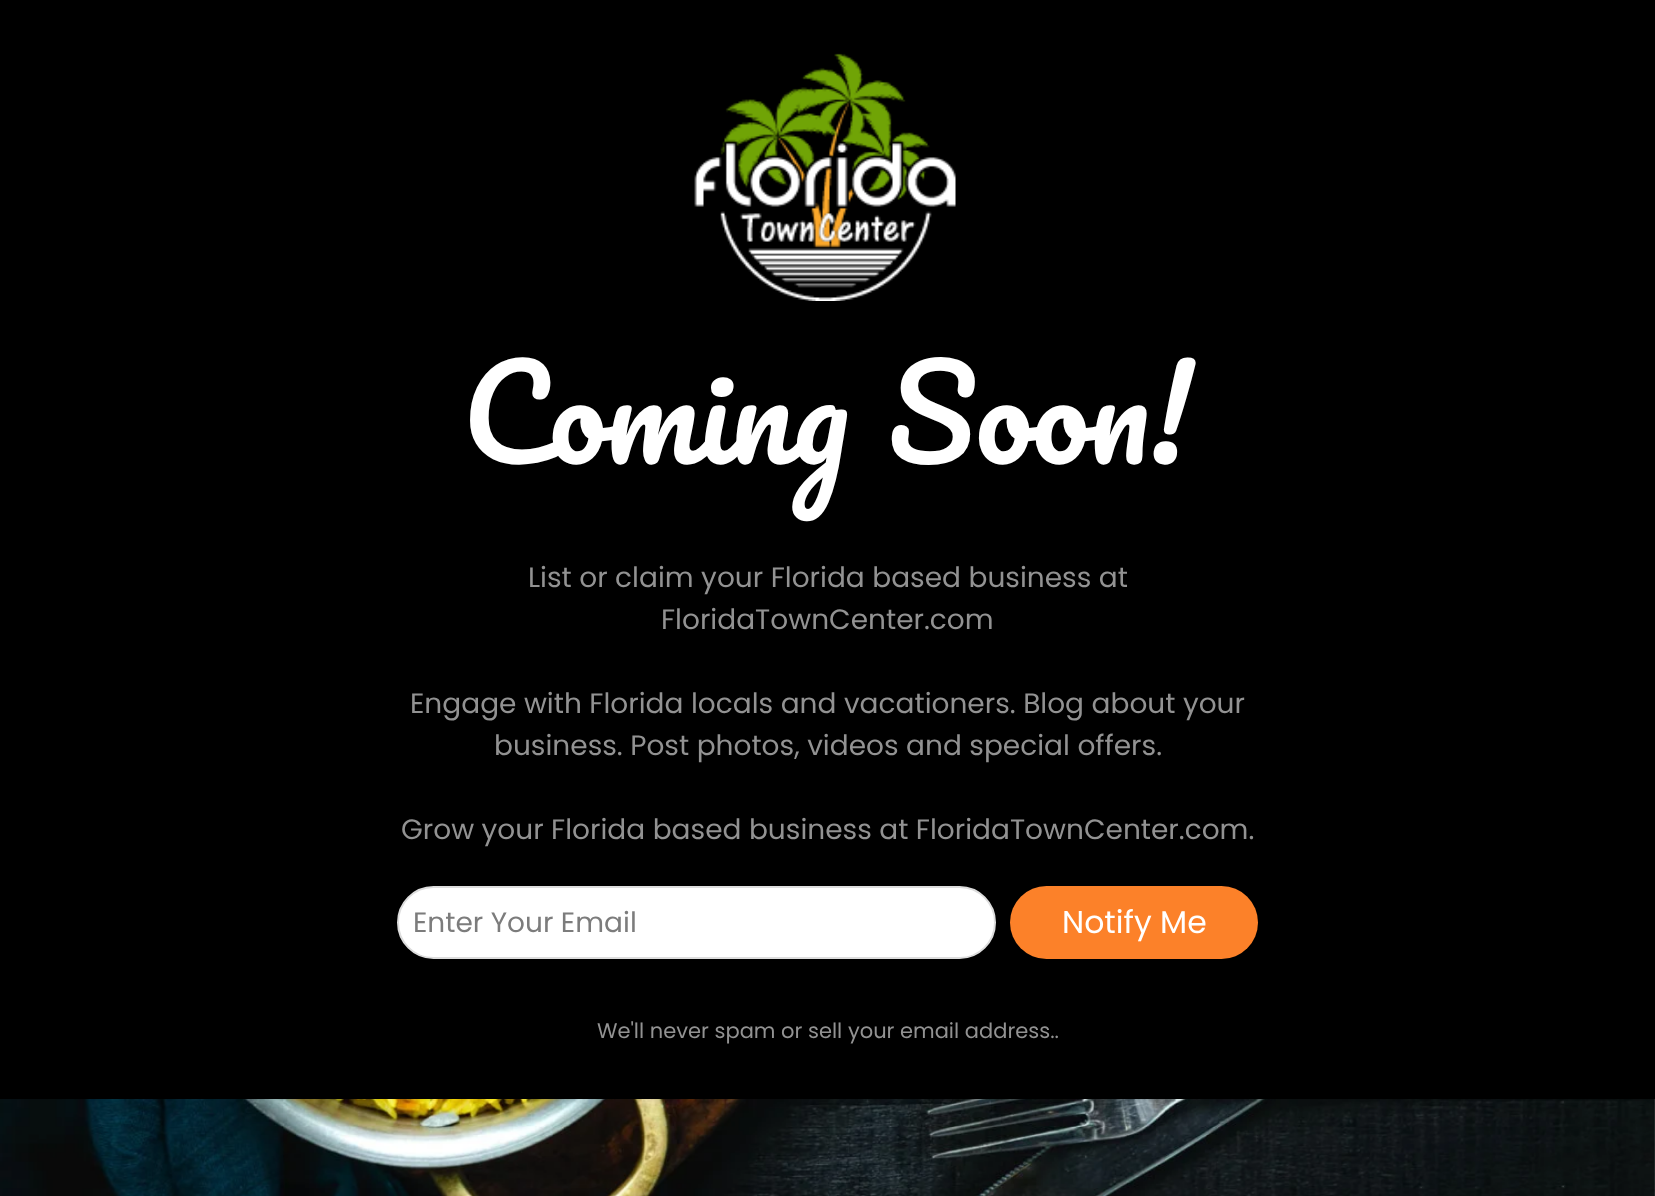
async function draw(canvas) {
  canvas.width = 1655;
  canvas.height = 1196;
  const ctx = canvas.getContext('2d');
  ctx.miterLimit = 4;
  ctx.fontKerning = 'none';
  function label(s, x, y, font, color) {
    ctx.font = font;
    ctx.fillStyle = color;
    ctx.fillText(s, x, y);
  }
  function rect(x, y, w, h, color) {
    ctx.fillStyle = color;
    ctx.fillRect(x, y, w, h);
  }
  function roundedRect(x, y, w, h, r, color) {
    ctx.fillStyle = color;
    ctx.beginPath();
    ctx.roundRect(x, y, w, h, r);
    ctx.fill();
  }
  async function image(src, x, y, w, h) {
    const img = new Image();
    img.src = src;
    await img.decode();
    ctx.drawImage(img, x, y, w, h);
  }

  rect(0, 0, 1655, 1196, '#fff');
  await image('assets/img1.png', 0, 1099, 1655, 97);
  rect(0, 0, 1655, 1099, '#000');
  await image('assets/img2.png', 694, 53, 262, 248);
  ctx.wordSpacing = '5px';
  label('Coming Soon!', 462, 464, '126px Pacifico', '#fff');
  ctx.wordSpacing = '0px';
  label('List or claim your Florida based business at', 528, 587, '28px Poppins', '#929292');
  label('FloridaTownCenter.com', 661, 629, '28px Poppins', '#929292');
  label('Engage with Florida locals and vacationers. Blog about your', 410, 713, '28px Poppins', '#929292');
  label('business. Post photos, videos and special offers.', 494, 755, '28px Poppins', '#929292');
  label('Grow your Florida based business at FloridaTownCenter.com.', 401, 839, '28px Poppins', '#929292');
  ctx.fillStyle = '#fff';
  ctx.beginPath();
  ctx.roundRect(398, 887, 597, 71, 35.5);
  ctx.fill();
  ctx.strokeStyle = '#ddd';
  ctx.lineWidth = 2;
  ctx.stroke();
  label('Enter Your Email', 413, 932, '28px Poppins', '#7c7c7c');
  roundedRect(1010, 886, 248, 73, 36.5, '#fc8129');
  label('Notify Me', 1062, 933, '31.5px Poppins', '#fff');
  label('We\'ll never spam or sell your email address..', 597, 1038, '21px Poppins', '#929292');
}

draw(document.querySelector('canvas'));
